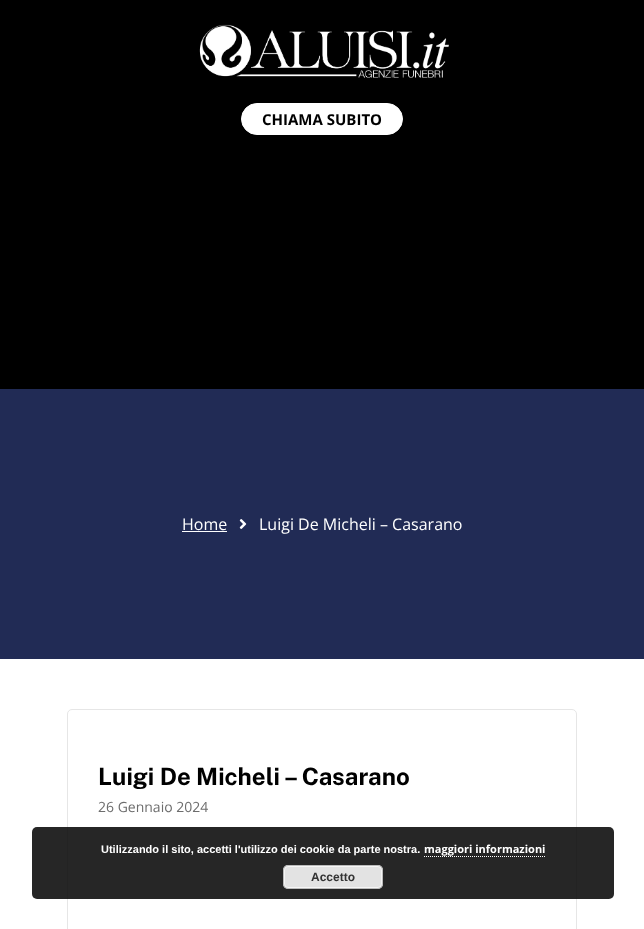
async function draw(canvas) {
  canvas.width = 644;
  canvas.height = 929;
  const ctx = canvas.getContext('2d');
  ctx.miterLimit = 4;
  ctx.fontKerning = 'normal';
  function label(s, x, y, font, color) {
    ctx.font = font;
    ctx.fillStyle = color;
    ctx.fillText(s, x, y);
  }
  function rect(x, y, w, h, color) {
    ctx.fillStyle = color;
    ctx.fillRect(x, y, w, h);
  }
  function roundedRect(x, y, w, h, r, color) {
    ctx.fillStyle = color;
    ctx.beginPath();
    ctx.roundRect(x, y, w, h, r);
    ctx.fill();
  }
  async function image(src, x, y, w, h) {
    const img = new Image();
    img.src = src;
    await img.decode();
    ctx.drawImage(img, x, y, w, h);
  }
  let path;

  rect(0, 0, 644, 929, '#fff');
  rect(0, 0, 644, 389, '#000');
  await image('assets/img1.png', 199, 24, 250, 54);
  ctx.fillStyle = '#fff';
  ctx.beginPath();
  ctx.roundRect(241.5, 103.5, 161, 31, 15.5);
  ctx.fill();
  ctx.strokeStyle = '#fff';
  ctx.stroke();
  label('CHIAMA SUBITO', 262, 125, 'bold 15px Open Sans', '#000');
  rect(0, 389, 644, 270, '#212b55');
  label('Home', 182, 530, '16px Open Sans', '#fff');
  rect(182, 531, 45, 1, '#fff');
  await image('assets/img2.png', 239, 519, 8, 10);
  label('Luigi De Micheli – Casarano', 259, 530, '16px Open Sans', '#fff');
  ctx.beginPath();
  ctx.roundRect(67.5, 709.5, 509, 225, 4.5);
  ctx.strokeStyle = '#e6e6e6';
  ctx.stroke();
  label('Luigi De Micheli – Casarano', 98, 785, 'bold 24px Public Sans', '#000');
  label('26 Gennaio 2024', 98, 812, '14px Open Sans', '#6d6d6d');
  roundedRect(32, 827, 582, 72, 5, '#000000d9');
  label('Utilizzando il sito, accetti l\'utilizzo dei cookie da parte nostra.', 101, 853, 'bold 11px Liberation Sans', '#fff');
  label('maggiori informazioni', 424, 853, 'bold 11px Open Sans', '#fff');
  path = new Path2D('M424 856.5H545');
  ctx.strokeStyle = '#fff';
  ctx.setLineDash([1, 1]);
  ctx.stroke(path);
  roundedRect(283, 865, 100, 24, 5, '#e3e3e3');
  ctx.beginPath();
  ctx.roundRect(284.5, 866.5, 97, 21, 3.5);
  ctx.strokeStyle = '#f6f6f6';
  ctx.setLineDash([]);
  ctx.stroke();
  ctx.beginPath();
  ctx.roundRect(283.5, 865.5, 99, 23, 4.5);
  ctx.strokeStyle = '#bbb';
  ctx.stroke();
  label('Accetto', 311, 881, 'bold 12px Liberation Sans', '#333');
}

draw(document.querySelector('canvas'));
